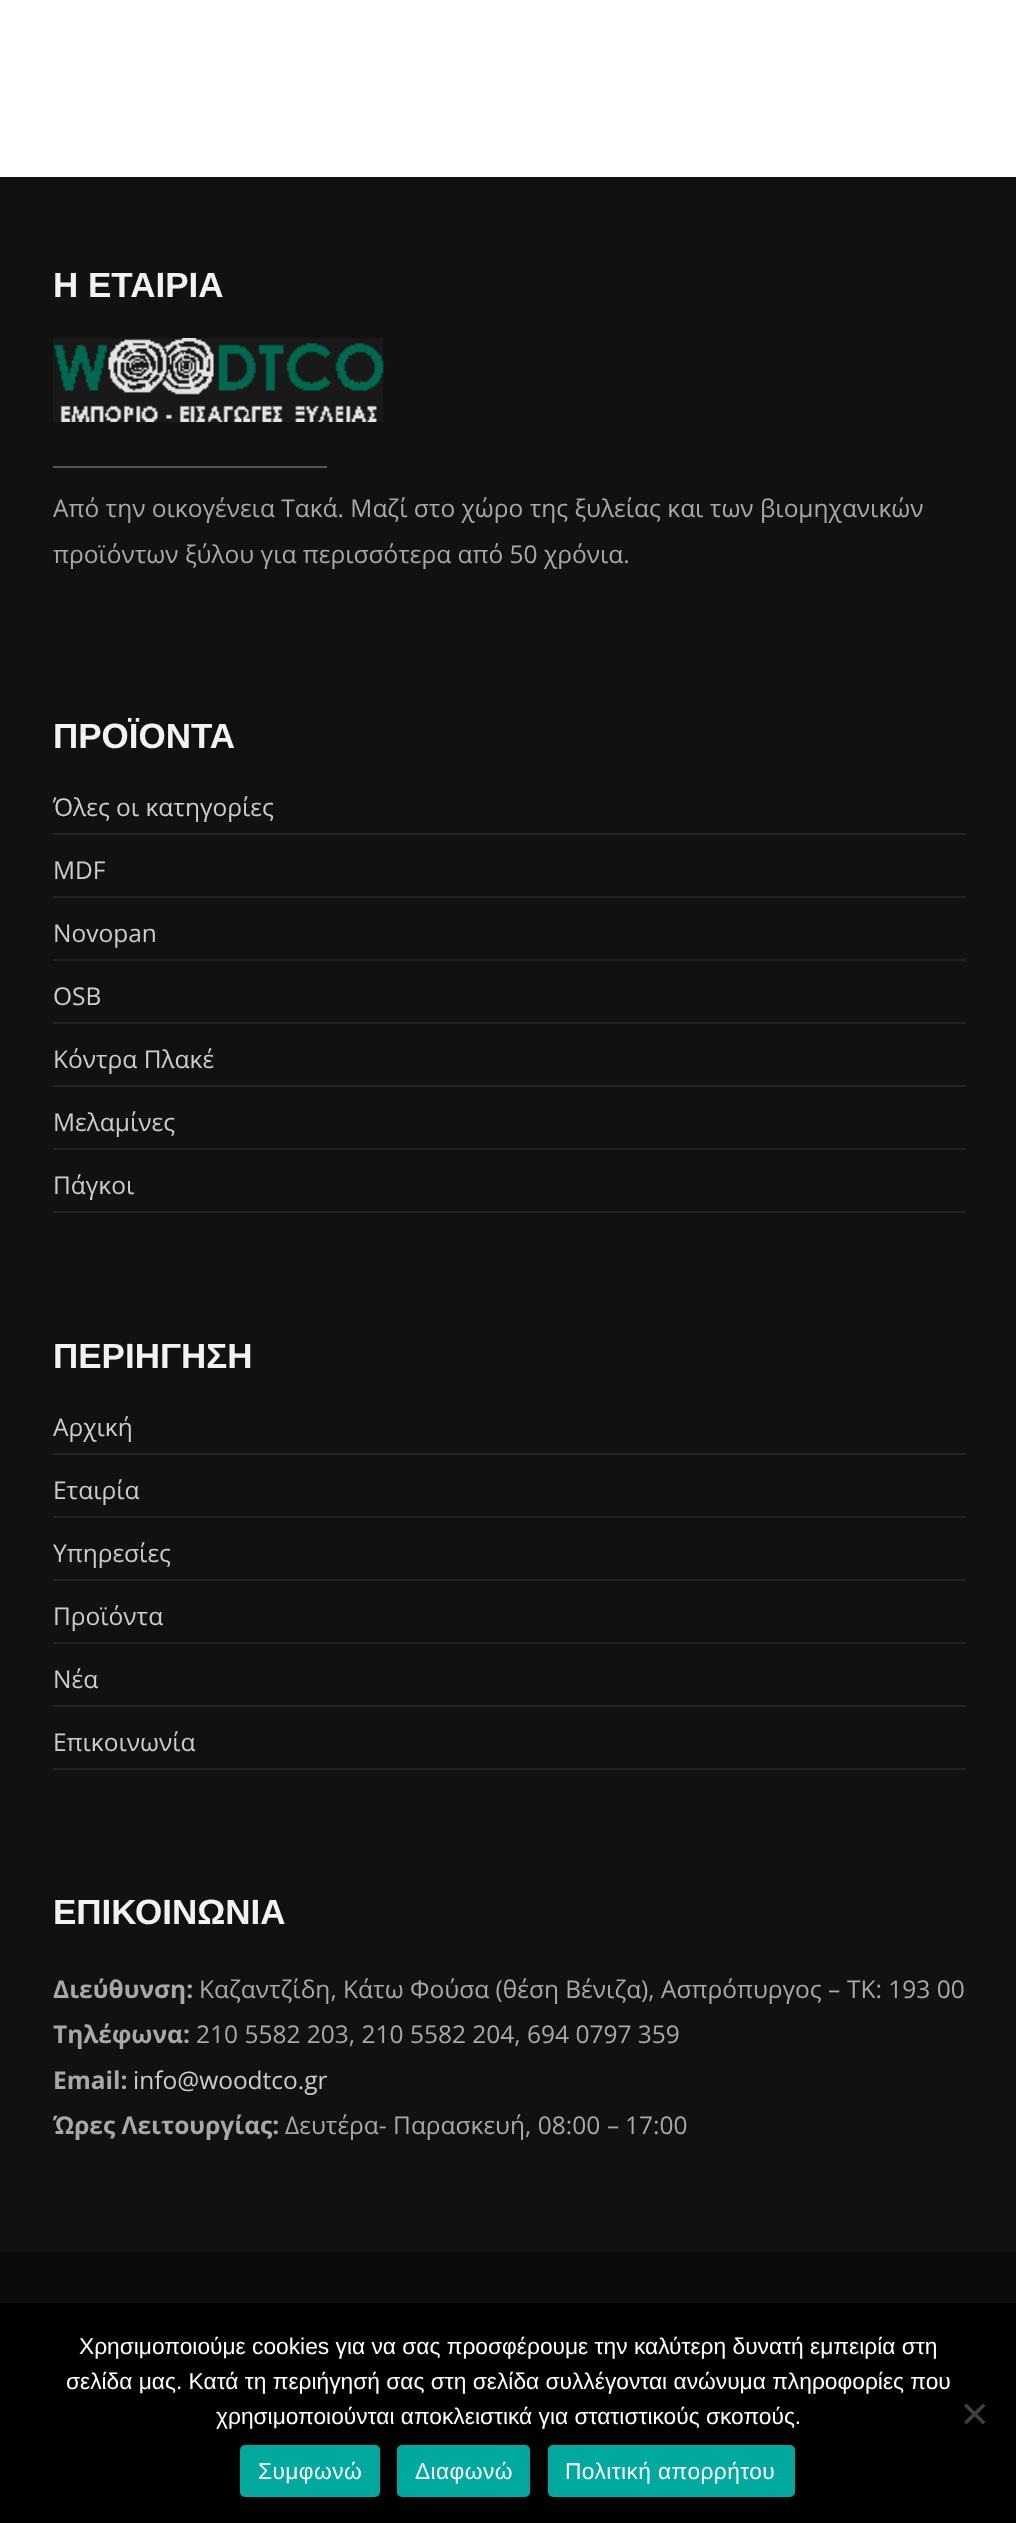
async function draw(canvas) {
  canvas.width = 1016;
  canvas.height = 2523;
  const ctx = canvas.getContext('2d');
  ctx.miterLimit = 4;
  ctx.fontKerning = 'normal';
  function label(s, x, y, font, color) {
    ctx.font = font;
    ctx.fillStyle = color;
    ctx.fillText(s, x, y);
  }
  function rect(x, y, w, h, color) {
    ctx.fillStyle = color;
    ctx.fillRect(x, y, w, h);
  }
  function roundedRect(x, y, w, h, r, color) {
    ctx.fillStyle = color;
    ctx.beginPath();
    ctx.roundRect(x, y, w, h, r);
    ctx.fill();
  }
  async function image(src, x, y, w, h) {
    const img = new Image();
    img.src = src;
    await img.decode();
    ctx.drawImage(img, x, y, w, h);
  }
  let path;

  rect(0, 0, 1016, 2523, '#fff');
  rect(0, 177, 1016, 2075, '#111');
  label('Η ΕΤΑΙΡΙΑ', 53, 297, 'bold 35px Liberation Sans', '#f2f2f2');
  await image('assets/img1.png', 53, 338, 331, 84);
  rect(53, 466, 274, 2, '#555');
  label('Από την οικογένεια Τακά. Μαζί στο χώρο της ξυλείας και των βιομηχανικών', 53, 517, '24.5px Open Sans', '#a8a8a8');
  label('προϊόντων ξύλου για περισσότερα από 50 χρόνια.', 53, 563, '24.5px Open Sans', '#a8a8a8');
  label('ΠΡΟΪΟΝΤΑ', 53, 748, 'bold 35px Liberation Sans', '#f2f2f2');
  rect(53, 833, 913, 2, '#222');
  label('Όλες οι κατηγορίες', 53, 816, '24.5px Open Sans', '#ccc');
  rect(53, 896, 913, 2, '#222');
  label('MDF', 53, 879, '24.5px Open Sans', '#ccc');
  rect(53, 959, 913, 2, '#222');
  label('Novopan', 53, 942, '24.5px Open Sans', '#ccc');
  rect(53, 1022, 913, 2, '#222');
  label('OSB', 53, 1005, '24.5px Open Sans', '#ccc');
  rect(53, 1085, 913, 2, '#222');
  label('Κόντρα Πλακέ', 53, 1068, '24.5px Open Sans', '#ccc');
  rect(53, 1148, 913, 2, '#222');
  label('Μελαμίνες', 53, 1131, '24.5px Open Sans', '#ccc');
  rect(53, 1211, 913, 2, '#222');
  label('Πάγκοι', 53, 1194, '24.5px Open Sans', '#ccc');
  label('ΠΕΡΙΗΓΗΣΗ', 53, 1368, 'bold 35px Liberation Sans', '#f2f2f2');
  rect(53, 1453, 913, 2, '#222');
  label('Αρχική', 53, 1436, '24.5px Open Sans', '#ccc');
  rect(53, 1516, 913, 2, '#222');
  label('Εταιρία', 53, 1499, '24.5px Open Sans', '#ccc');
  rect(53, 1579, 913, 2, '#222');
  label('Υπηρεσίες', 53, 1562, '24.5px Open Sans', '#ccc');
  rect(53, 1642, 913, 2, '#222');
  label('Προϊόντα', 53, 1625, '24.5px Open Sans', '#ccc');
  rect(53, 1705, 913, 2, '#222');
  label('Νέα', 53, 1688, '24.5px Open Sans', '#ccc');
  rect(53, 1768, 913, 2, '#222');
  label('Επικοινωνία', 53, 1751, '24.5px Open Sans', '#ccc');
  label('ΕΠΙΚΟΙΝΩΝΙΑ', 53, 1924, 'bold 35px Liberation Sans', '#f2f2f2');
  label('Διεύθυνση:', 53, 1998, 'bold 24.5px Open Sans', '#a8a8a8');
  label('Καζαντζίδη, Κάτω Φούσα (θέση Βένιζα), Ασπρόπυργος', 199, 1998, '24.5px Open Sans', '#a8a8a8');
  label('–', 828, 1998, '24.5px "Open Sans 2"', '#a8a8a8');
  label('ΤΚ: 193 00', 847, 1998, '24.5px Open Sans', '#a8a8a8');
  label('Τηλέφωνα:', 53, 2043, 'bold 24.5px Open Sans', '#a8a8a8');
  label('210 5582 203, 210 5582 204, 694 0797 359', 196, 2043, '24.5px Open Sans', '#a8a8a8');
  label('Email:', 53, 2089, 'bold 24.5px Open Sans', '#a8a8a8');
  label('info@woodtco.gr', 133, 2089, '24.5px Open Sans', '#ccc');
  label('Ώρες Λειτουργίας:', 53, 2134, 'bold 24.5px Open Sans', '#a8a8a8');
  label('Δευτέρα- Παρασκευή, 08:00', 285, 2134, '24.5px Open Sans', '#a8a8a8');
  label('–', 607, 2134, '24.5px "Open Sans 2"', '#a8a8a8');
  label('17:00', 625, 2134, '24.5px Open Sans', '#a8a8a8');
  rect(0, 2252, 1016, 51, '#0b0b0b');
  rect(0, 2303, 1016, 220, '#000');
  label('Χρησιμοποιούμε cookies για να σας προσφέρουμε την καλύτερη δυνατή εμπειρία στη', 79, 2354, '22.75px Liberation Sans', '#fff');
  label('σελίδα μας. Κατά τη περιήγησή σας στη σελίδα συλλέγονται ανώνυμα πληροφορίες που', 66, 2389, '22.75px Liberation Sans', '#fff');
  label('χρησιμοποιούνται αποκλειστικά για στατιστικούς σκοπούς.', 216, 2424, '22.75px Liberation Sans', '#fff');
  ctx.fillStyle = '#404040';
  path = new Path2D('M983 2403.5L985.5 2406L966.5 2424.5L964 2422Z');
  ctx.fill(path);
  path = new Path2D('M964 2406L966.5 2403.5L985.5 2422L983 2424.5Z');
  ctx.fill(path);
  roundedRect(240, 2445, 140, 52, 5, '#00a99d');
  ctx.letterSpacing = '0.4px';
  label('Συμφωνώ', 258, 2479, '22.75px Liberation Sans', '#fff');
  roundedRect(397, 2445, 133, 52, 5, '#00a99d');
  label('Διαφωνώ', 415, 2479, '22.75px Liberation Sans', '#fff');
  roundedRect(548, 2445, 247, 52, 5, '#00a99d');
  label('Πολιτική απορρήτου', 565, 2479, '22.75px Liberation Sans', '#fff');
}

draw(document.querySelector('canvas'));
